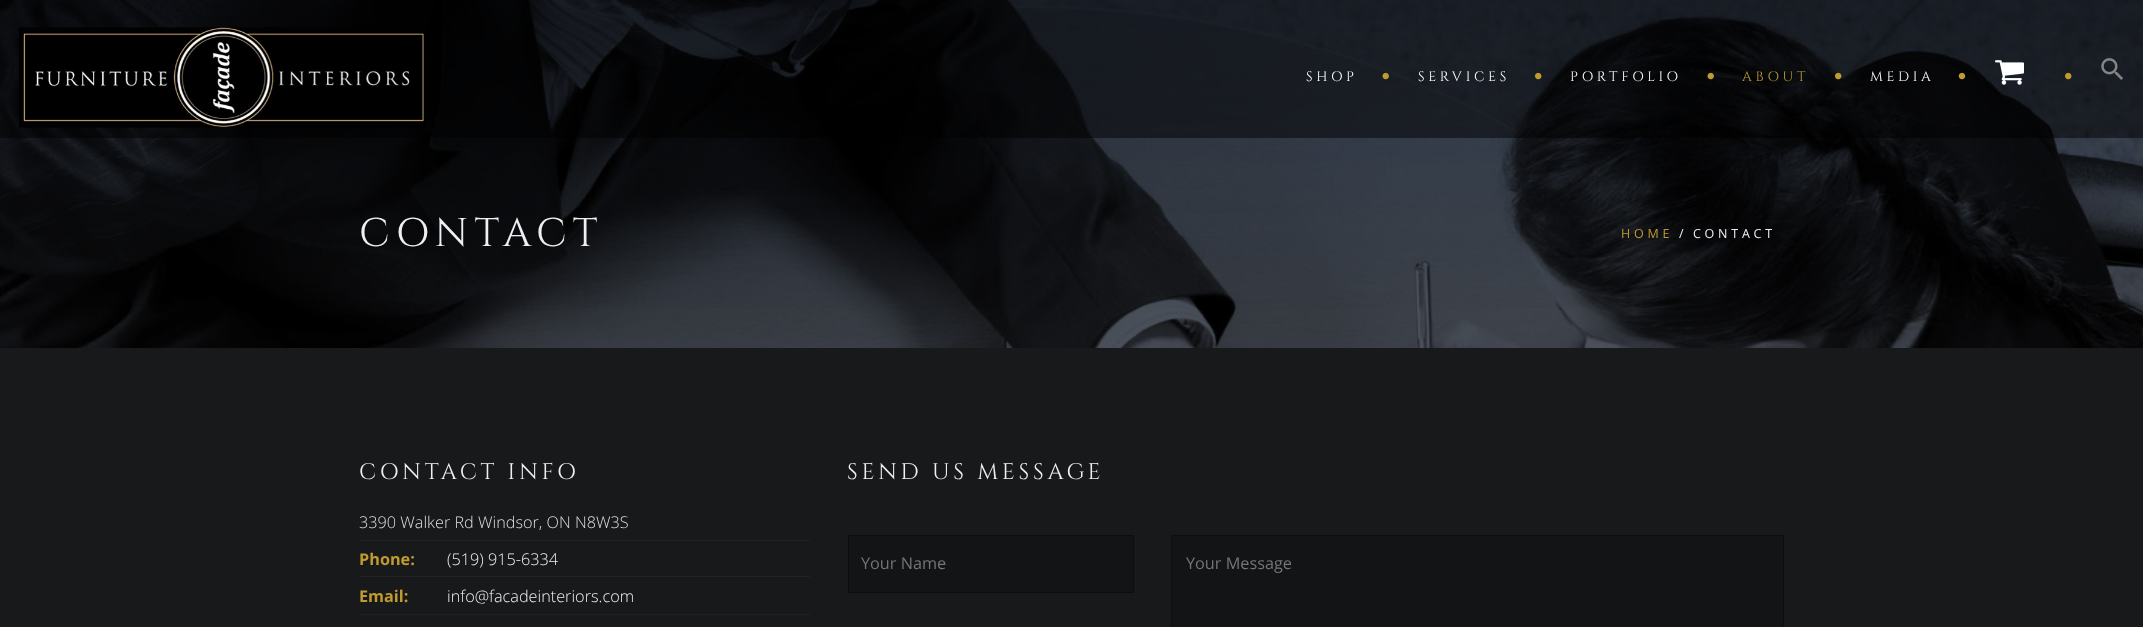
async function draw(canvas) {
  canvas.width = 2143;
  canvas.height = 627;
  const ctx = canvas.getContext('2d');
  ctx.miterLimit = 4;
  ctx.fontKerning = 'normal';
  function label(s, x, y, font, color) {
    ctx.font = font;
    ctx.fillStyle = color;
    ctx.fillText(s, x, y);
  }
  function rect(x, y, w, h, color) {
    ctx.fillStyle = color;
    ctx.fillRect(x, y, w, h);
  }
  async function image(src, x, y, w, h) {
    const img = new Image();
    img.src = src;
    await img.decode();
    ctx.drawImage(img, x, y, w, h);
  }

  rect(0, 0, 2143, 627, '#fff');
  await image('assets/img10.png', 0, 0, 2143, 348);
  rect(0, 0, 2143, 138, '#00000080');
  await image('assets/img1.png', 19, 27, 407, 101);
  ctx.letterSpacing = '3.75px';
  label('SHOP', 1306, 81, '13.75px Cinzel', '#fff');
  await image('assets/img2.png', 1382, 72, 7, 8);
  label('SERVICES', 1418, 81, '13.75px Cinzel', '#fff');
  await image('assets/img3.png', 1535, 72, 7, 8);
  label('PORTFOLIO', 1570, 81, '13.75px Cinzel', '#fff');
  await image('assets/img4.png', 1707, 72, 7, 8);
  label('ABOUT', 1742, 81, '13.75px Cinzel', '#bf9b30');
  await image('assets/img5.png', 1835, 72, 7, 8);
  label('MEDIA', 1870, 81, '13.75px Cinzel', '#fff');
  await image('assets/img6.png', 1958, 72, 8, 8);
  await image('assets/img7.png', 1995, 60, 29, 25);
  await image('assets/img8.png', 2065, 72, 7, 8);
  await image('assets/img9.png', 2101, 58, 22, 22);
  ctx.letterSpacing = '6.25px';
  label('CONTACT', 359, 246, '40px Cinzel', '#eceff3');
  ctx.letterSpacing = '3.75px';
  label('HOME', 1621, 238, '12.5px Open Sans', '#bf9b30');
  label('/', 1679, 238, '12.5px Open Sans', '#eceff3');
  label('CONTACT', 1693, 238, '12.5px Open Sans', '#eceff3');
  rect(0, 348, 2143, 279, '#18191b');
  label('CONTACT INFO', 359, 479, '22.5px Cinzel', '#eceff3');
  rect(360, 540, 450, 1, '#222');
  ctx.letterSpacing = '0px';
  label('3390 Walker Rd Windsor, ON N8W3S', 359, 528, '300 16.25px Open Sans', '#ddd');
  rect(360, 576, 450, 1, '#222');
  label('Phone:', 359, 565, 'bold 16.25px Open Sans', '#bf9b30');
  label('(519) 915-6334', 447, 565, '300 16.25px Open Sans', '#eceff3');
  rect(360, 614, 450, 1, '#222');
  label('Email:', 359, 602, 'bold 16.25px Open Sans', '#bf9b30');
  label('info@facadeinteriors.com', 447, 602, '300 16.25px Open Sans', '#eceff3');
  ctx.letterSpacing = '3.75px';
  label('SEND US MESSAGE', 847, 479, '22.5px Cinzel', '#eceff3');
  ctx.fillStyle = '#131416';
  ctx.beginPath();
  ctx.rect(848.5, 535.5, 285, 57);
  ctx.fill();
  ctx.strokeStyle = '#0d0e0f';
  ctx.stroke();
  ctx.letterSpacing = '0px';
  label('Your Name', 861, 569, '16.25px Open Sans', '#757575');
  ctx.fillStyle = '#131416';
  ctx.beginPath();
  ctx.rect(1171.5, 535.5, 612, 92);
  ctx.fill();
  ctx.stroke();
  label('Your Message', 1186, 569, '16.25px Open Sans', '#757575');
}

draw(document.querySelector('canvas'));
